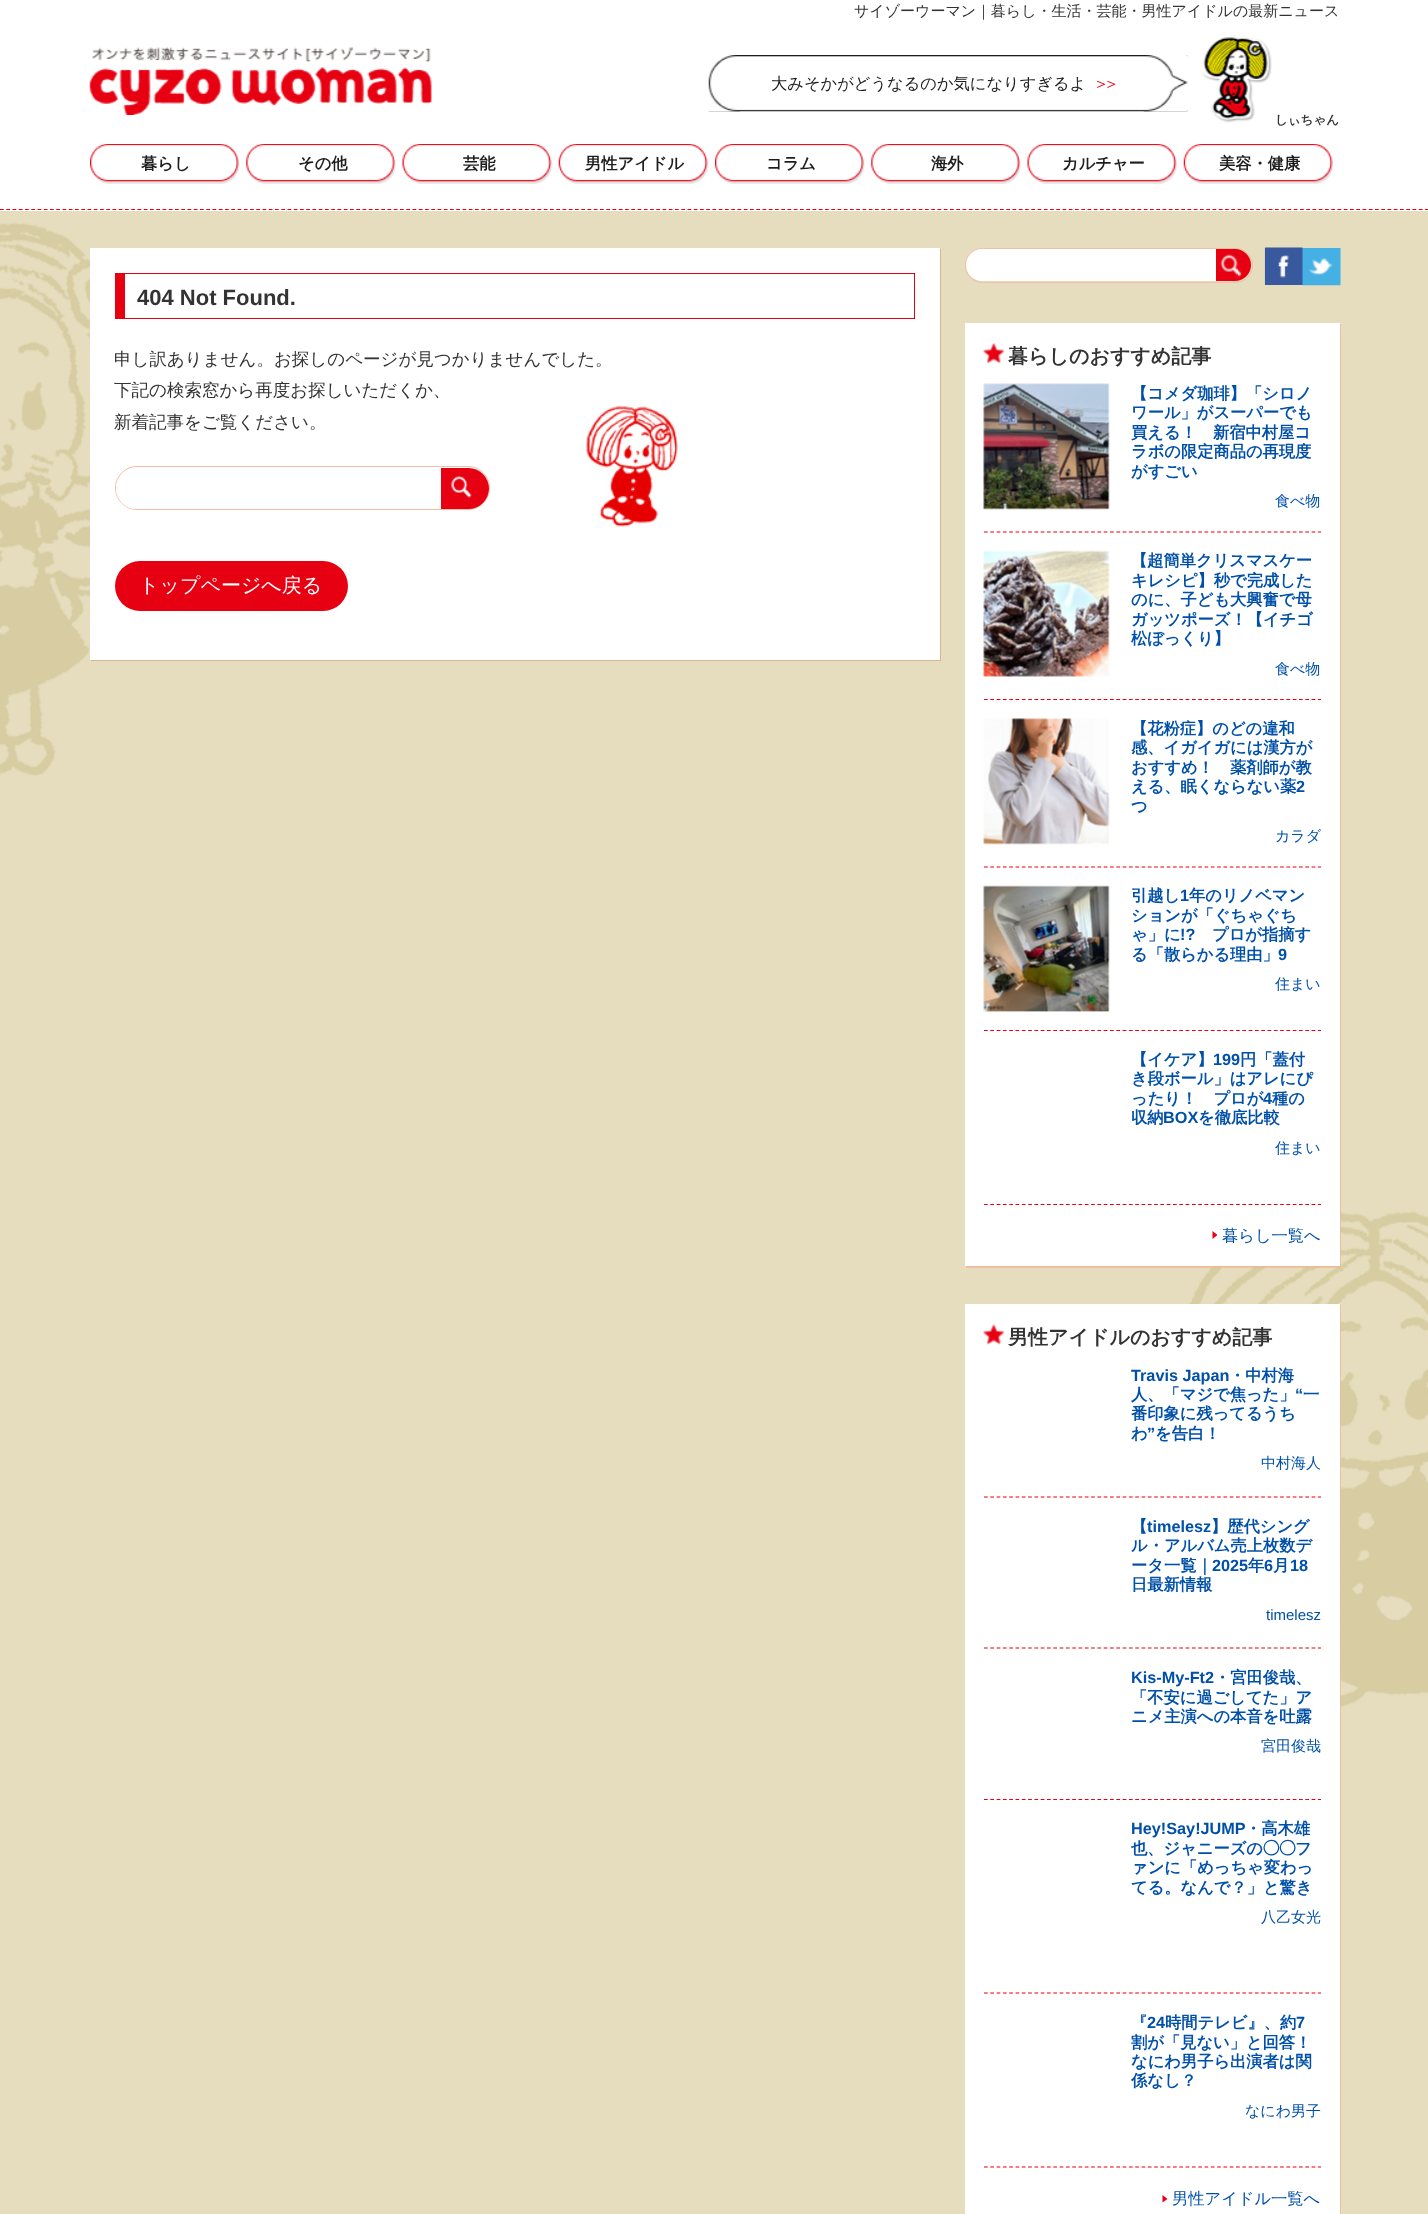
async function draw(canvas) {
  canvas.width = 1428;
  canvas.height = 2214;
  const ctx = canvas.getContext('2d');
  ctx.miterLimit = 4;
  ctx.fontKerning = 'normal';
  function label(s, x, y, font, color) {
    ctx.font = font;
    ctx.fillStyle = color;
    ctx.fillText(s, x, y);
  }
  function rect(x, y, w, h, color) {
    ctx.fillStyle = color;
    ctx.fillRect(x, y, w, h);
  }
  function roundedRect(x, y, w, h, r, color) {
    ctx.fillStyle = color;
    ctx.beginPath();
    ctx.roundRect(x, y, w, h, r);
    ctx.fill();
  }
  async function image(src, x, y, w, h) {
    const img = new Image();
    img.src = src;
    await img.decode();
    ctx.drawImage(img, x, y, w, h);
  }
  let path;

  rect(0, 0, 1428, 2214, '#e5ddbd');
  ctx.fillStyle = '#fff';
  path = new Path2D('M0 210V211H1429V1V210Z');
  ctx.fill(path);
  rect(0, 0, 1428, 210, '#fff');
  path = new Path2D('M0 209.5H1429');
  ctx.strokeStyle = '#e60012';
  ctx.lineWidth = 1.2;
  ctx.setLineDash([3.75, 2.5]);
  ctx.stroke(path);
  label('サイゾーウーマン｜暮らし・生活・芸能・男性アイドルの最新ニュース', 854, 16, '500 15px WenQuanYi Zen Hei', '#333');
  await image('assets/img1.png', 89, 47, 343, 68);
  await image('assets/img2.png', 708, 55, 480, 57);
  label('大みそかがどうなるのか気になりすぎるよ', 771, 89, '500 16.25px WenQuanYi Zen Hei', '#1d1d1d');
  ctx.letterSpacing = '-6px';
  label('＞＞', 1093, 89, '500 16.25px WenQuanYi Zen Hei', '#e60012');
  await image('assets/img3.png', 1201, 35, 71, 88);
  ctx.letterSpacing = '0px';
  label('しぃちゃん', 1275, 124, 'bold 12.5px WenQuanYi Zen Hei', '#333');
  await image('assets/img4.png', 90, 144, 150, 40);
  label('暮らし', 141, 169, 'bold 16.25px WenQuanYi Zen Hei', '#1d1d1d');
  await image('assets/img5.png', 246, 144, 150, 40);
  label('その他', 298, 169, 'bold 16.25px WenQuanYi Zen Hei', '#1d1d1d');
  await image('assets/img6.png', 402, 144, 151, 40);
  label('芸能', 463, 169, 'bold 16.25px WenQuanYi Zen Hei', '#1d1d1d');
  await image('assets/img7.png', 558, 144, 151, 40);
  label('男性アイドル', 585, 169, 'bold 16.25px WenQuanYi Zen Hei', '#1d1d1d');
  await image('assets/img4.png', 715, 144, 150, 40);
  label('コラム', 766, 169, 'bold 16.25px WenQuanYi Zen Hei', '#1d1d1d');
  await image('assets/img8.png', 871, 144, 150, 40);
  label('海外', 931, 169, 'bold 16.25px WenQuanYi Zen Hei', '#1d1d1d');
  await image('assets/img9.png', 1027, 144, 151, 40);
  label('カルチャー', 1062, 169, 'bold 16.25px WenQuanYi Zen Hei', '#1d1d1d');
  await image('assets/img10.png', 1183, 144, 151, 40);
  label('美容・健康', 1219, 169, 'bold 16.25px WenQuanYi Zen Hei', '#1d1d1d');
  await image('assets/img11.png', 0, 222, 1428, 1486);
  ctx.fillStyle = '#d9b690';
  ctx.filter = 'blur(0.5px)';
  ctx.beginPath();
  ctx.rect(91, 249, 850, 412);
  ctx.fill();
  ctx.filter = 'none';
  rect(90, 248, 850, 412, '#fff');
  rect(125, 273, 790, 1, '#e60012');
  rect(914, 273, 1, 46, '#e60012');
  rect(125, 318, 790, 1, '#e60012');
  rect(115, 273, 10, 46, '#e60012');
  label('404 Not Found.', 137, 305, 'bold 22px Liberation Sans', '#333');
  label('申し訳ありません。お探しのページが見つかりませんでした。', 114, 365, '500 17.5px WenQuanYi Zen Hei', '#333');
  label('下記の検索窓から再度お探しいただくか、', 114, 396, '500 17.5px WenQuanYi Zen Hei', '#333');
  label('新着記事をご覧ください。', 114, 428, '500 17.5px WenQuanYi Zen Hei', '#333');
  await image('assets/img12.png', 586, 406, 92, 121);
  ctx.beginPath();
  ctx.roundRect(115.5, 466.5, 374, 43, 21.5);
  ctx.strokeStyle = '#f5bda4';
  ctx.lineWidth = 1;
  ctx.setLineDash([]);
  ctx.stroke();
  ctx.fillStyle = '#fff';
  ctx.beginPath();
  ctx.roundRect(116, 468, 325, 41, [20.5, 0, 0, 20.5]);
  ctx.fill();
  ctx.fillStyle = '#e60012';
  ctx.beginPath();
  ctx.roundRect(441, 468, 48, 41, [0, 20.5, 20.5, 0]);
  ctx.fill();
  await image('assets/img13.png', 451, 476, 21, 22);
  roundedRect(115, 561, 233, 50, 25, '#e60012');
  label('トップページへ戻る', 139, 592, '500 20px WenQuanYi Zen Hei', '#fff');
  ctx.beginPath();
  ctx.roundRect(965.5, 248.5, 287, 34, 17);
  ctx.stroke();
  ctx.beginPath();
  ctx.roundRect(966, 249, 250, 32, [16, 0, 0, 16]);
  ctx.fill();
  ctx.fillStyle = '#e60012';
  ctx.beginPath();
  ctx.roundRect(1216, 249, 35, 32, [0, 16, 16, 0]);
  ctx.fill();
  await image('assets/img14.png', 1220, 254, 22, 23);
  rect(1265, 248, 38, 37, '#39599f');
  await image('assets/img15.png', 1264, 247, 39, 38);
  rect(1303, 248, 37, 37, '#45b0e3');
  await image('assets/img16.png', 1302, 248, 39, 38);
  ctx.fillStyle = '#f0b596bf';
  ctx.filter = 'blur(0.5px)';
  ctx.beginPath();
  ctx.rect(966, 324, 375, 944);
  ctx.fill();
  ctx.filter = 'none';
  rect(965, 323, 375, 943, '#fff');
  await image('assets/img17.png', 983, 343, 22, 20);
  label('暮らしのおすすめ記事', 1008, 363, 'bold 20px WenQuanYi Zen Hei', '#333');
  path = new Path2D('M984 532H1321');
  ctx.strokeStyle = '#e60012';
  ctx.lineWidth = 1.2;
  ctx.setLineDash([3.75, 2.55]);
  ctx.stroke(path);
  await image('assets/img18.png', 983, 383, 127, 127);
  label('【コメダ珈琲】「シロノ', 1131, 399, 'bold 16.25px WenQuanYi Zen Hei', '#0050a9');
  label('ワール」がスーパーでも', 1131, 418, 'bold 16.25px WenQuanYi Zen Hei', '#0050a9');
  label('買える！　新宿中村屋コ', 1131, 438, 'bold 16.25px WenQuanYi Zen Hei', '#0050a9');
  label('ラボの限定商品の再現度', 1131, 457, 'bold 16.25px WenQuanYi Zen Hei', '#0050a9');
  label('がすごい', 1131, 477, 'bold 16.25px WenQuanYi Zen Hei', '#0050a9');
  label('食べ物', 1275, 506, '500 15px WenQuanYi Zen Hei', '#0050a9');
  path = new Path2D('M984 699.5H1321');
  ctx.stroke(path);
  await image('assets/img19.png', 983, 550, 127, 127);
  label('【超簡単クリスマスケー', 1131, 566, 'bold 16.25px WenQuanYi Zen Hei', '#0050a9');
  label('キレシピ】秒で完成した', 1131, 586, 'bold 16.25px WenQuanYi Zen Hei', '#0050a9');
  label('のに、子ども大興奮で母', 1131, 605, 'bold 16.25px WenQuanYi Zen Hei', '#0050a9');
  label('ガッツポーズ！【イチゴ', 1131, 625, 'bold 16.25px WenQuanYi Zen Hei', '#0050a9');
  label('松ぼっくり】', 1131, 644, 'bold 16.25px WenQuanYi Zen Hei', '#0050a9');
  label('食べ物', 1275, 674, '500 15px WenQuanYi Zen Hei', '#0050a9');
  path = new Path2D('M984 867H1321');
  ctx.stroke(path);
  await image('assets/img20.png', 983, 718, 127, 127);
  label('【花粉症】のどの違和', 1131, 734, 'bold 16.25px WenQuanYi Zen Hei', '#0050a9');
  label('感、イガイガには漢方が', 1131, 753, 'bold 16.25px WenQuanYi Zen Hei', '#0050a9');
  label('おすすめ！　薬剤師が教', 1131, 773, 'bold 16.25px WenQuanYi Zen Hei', '#0050a9');
  label('える、眠くならない薬', 1131, 792, 'bold 16.25px WenQuanYi Zen Hei', '#0050a9');
  label('2', 1296, 792, 'bold 16.25px Liberation Sans', '#0050a9');
  label('つ', 1131, 812, 'bold 16.25px WenQuanYi Zen Hei', '#0050a9');
  label('カラダ', 1275, 841, '500 15px WenQuanYi Zen Hei', '#0050a9');
  path = new Path2D('M984 1030.5H1321');
  ctx.stroke(path);
  await image('assets/img21.png', 983, 885, 127, 127);
  label('引越し', 1131, 901, 'bold 16.25px WenQuanYi Zen Hei', '#0050a9');
  label('1', 1180, 901, 'bold 16.25px Liberation Sans', '#0050a9');
  label('年のリノベマン', 1189, 901, 'bold 16.25px WenQuanYi Zen Hei', '#0050a9');
  label('ションが「ぐちゃぐち', 1131, 921, 'bold 16.25px WenQuanYi Zen Hei', '#0050a9');
  label('ゃ」に', 1131, 940, 'bold 16.25px WenQuanYi Zen Hei', '#0050a9');
  label('!?', 1180, 940, 'bold 16.25px Liberation Sans', '#0050a9');
  label('プロが指摘す', 1212, 940, 'bold 16.25px WenQuanYi Zen Hei', '#0050a9');
  label('る「散らかる理由」', 1131, 960, 'bold 16.25px WenQuanYi Zen Hei', '#0050a9');
  label('9', 1278, 960, 'bold 16.25px Liberation Sans', '#0050a9');
  label('住まい', 1275, 989, '500 15px WenQuanYi Zen Hei', '#0050a9');
  label('【イケア】', 1131, 1065, 'bold 16.25px WenQuanYi Zen Hei', '#0050a9');
  label('199', 1213, 1065, 'bold 16.25px Liberation Sans', '#0050a9');
  label('円「蓋付', 1240, 1065, 'bold 16.25px WenQuanYi Zen Hei', '#0050a9');
  label('き段ボール」はアレにぴ', 1131, 1084, 'bold 16.25px WenQuanYi Zen Hei', '#0050a9');
  label('ったり！　プロが', 1131, 1104, 'bold 16.25px WenQuanYi Zen Hei', '#0050a9');
  label('4', 1263, 1104, 'bold 16.25px Liberation Sans', '#0050a9');
  label('種の', 1272, 1104, 'bold 16.25px WenQuanYi Zen Hei', '#0050a9');
  label('収納', 1131, 1123, 'bold 16.25px WenQuanYi Zen Hei', '#0050a9');
  label('BOX', 1163, 1123, 'bold 16.25px Liberation Sans', '#0050a9');
  label('を徹底比較', 1198, 1123, 'bold 16.25px WenQuanYi Zen Hei', '#0050a9');
  label('住まい', 1275, 1153, '500 15px WenQuanYi Zen Hei', '#0050a9');
  path = new Path2D('M984 1204.5H1321');
  ctx.stroke(path);
  ctx.fillStyle = '#e60012';
  path = new Path2D('M1212.5 1239V1231L1217.5 1235Z');
  ctx.fill(path);
  label('暮らし一覧へ', 1222, 1241, '500 16.25px WenQuanYi Zen Hei', '#0050a9');
  ctx.fillStyle = '#f0b596bf';
  ctx.filter = 'blur(0.5px)';
  ctx.beginPath();
  ctx.rect(966, 1305, 375, 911);
  ctx.fill();
  ctx.filter = 'none';
  rect(965, 1304, 375, 910, '#fff');
  await image('assets/img22.png', 983, 1324, 22, 21);
  label('男性アイドルのおすすめ記事', 1008, 1344, 'bold 20px WenQuanYi Zen Hei', '#333');
  path = new Path2D('M984 1497H1321');
  ctx.stroke(path);
  label('Travis Japan', 1131, 1381, 'bold 16.25px Liberation Sans', '#0050a9');
  label('・中村海', 1229, 1381, 'bold 16.25px WenQuanYi Zen Hei', '#0050a9');
  label('人、「マジで焦った」', 1131, 1400, 'bold 16.25px WenQuanYi Zen Hei', '#0050a9');
  label('“', 1295, 1400, 'bold 16.25px Liberation Sans', '#0050a9');
  label('一', 1303, 1400, 'bold 16.25px WenQuanYi Zen Hei', '#0050a9');
  label('番印象に残ってるうち', 1131, 1419, 'bold 16.25px WenQuanYi Zen Hei', '#0050a9');
  label('わ', 1131, 1439, 'bold 16.25px WenQuanYi Zen Hei', '#0050a9');
  label('”', 1147, 1439, 'bold 16.25px Liberation Sans', '#0050a9');
  label('を告白！', 1155, 1439, 'bold 16.25px WenQuanYi Zen Hei', '#0050a9');
  label('中村海人', 1261, 1468, '500 15px WenQuanYi Zen Hei', '#0050a9');
  path = new Path2D('M984 1648H1321');
  ctx.stroke(path);
  label('【', 1131, 1532, 'bold 16.25px WenQuanYi Zen Hei', '#0050a9');
  label('timelesz', 1147, 1532, 'bold 16.25px Liberation Sans', '#0050a9');
  label('】歴代シング', 1211, 1532, 'bold 16.25px WenQuanYi Zen Hei', '#0050a9');
  label('ル・アルバム売上枚数デ', 1131, 1551, 'bold 16.25px WenQuanYi Zen Hei', '#0050a9');
  label('ータ一覧｜', 1131, 1571, 'bold 16.25px WenQuanYi Zen Hei', '#0050a9');
  label('2025', 1212, 1571, 'bold 16.25px Liberation Sans', '#0050a9');
  label('年', 1248, 1571, 'bold 16.25px WenQuanYi Zen Hei', '#0050a9');
  label('6', 1264, 1571, 'bold 16.25px Liberation Sans', '#0050a9');
  label('月', 1273, 1571, 'bold 16.25px WenQuanYi Zen Hei', '#0050a9');
  label('18', 1290, 1571, 'bold 16.25px Liberation Sans', '#0050a9');
  label('日最新情報', 1131, 1590, 'bold 16.25px WenQuanYi Zen Hei', '#0050a9');
  label('timelesz', 1266, 1620, '15px Liberation Sans', '#0050a9');
  path = new Path2D('M984 1799.5H1321');
  ctx.stroke(path);
  label('Kis-My-Ft2', 1131, 1683, 'bold 16.25px Liberation Sans', '#0050a9');
  label('・宮田俊哉、', 1214, 1683, 'bold 16.25px WenQuanYi Zen Hei', '#0050a9');
  label('「不安に過ごしてた」ア', 1131, 1703, 'bold 16.25px WenQuanYi Zen Hei', '#0050a9');
  label('ニメ主演への本音を吐露', 1131, 1722, 'bold 16.25px WenQuanYi Zen Hei', '#0050a9');
  label('宮田俊哉', 1261, 1751, '500 15px WenQuanYi Zen Hei', '#0050a9');
  path = new Path2D('M984 1993H1321');
  ctx.stroke(path);
  label('Hey!Say!JUMP', 1131, 1834, 'bold 16.25px Liberation Sans', '#0050a9');
  label('・高木雄', 1245, 1834, 'bold 16.25px WenQuanYi Zen Hei', '#0050a9');
  label('也、ジャニーズの', 1131, 1854, 'bold 16.25px WenQuanYi Zen Hei', '#0050a9');
  label('◯◯', 1263, 1854, 'bold 16.25px IPAPGothic', '#0050a9');
  label('フ', 1295, 1854, 'bold 16.25px WenQuanYi Zen Hei', '#0050a9');
  label('ァンに「めっちゃ変わっ', 1131, 1873, 'bold 16.25px WenQuanYi Zen Hei', '#0050a9');
  label('てる。なんで？」と驚き', 1131, 1893, 'bold 16.25px WenQuanYi Zen Hei', '#0050a9');
  label('八乙女光', 1261, 1922, '500 15px WenQuanYi Zen Hei', '#0050a9');
  label('『', 1131, 2028, 'bold 16.25px WenQuanYi Zen Hei', '#0050a9');
  label('24', 1147, 2028, 'bold 16.25px Liberation Sans', '#0050a9');
  label('時間テレビ』、約', 1165, 2028, 'bold 16.25px WenQuanYi Zen Hei', '#0050a9');
  label('7', 1296, 2028, 'bold 16.25px Liberation Sans', '#0050a9');
  label('割が「見ない」と回答！', 1131, 2048, 'bold 16.25px WenQuanYi Zen Hei', '#0050a9');
  label('なにわ男子ら出演者は関', 1131, 2067, 'bold 16.25px WenQuanYi Zen Hei', '#0050a9');
  label('係なし？', 1131, 2086, 'bold 16.25px WenQuanYi Zen Hei', '#0050a9');
  label('なにわ男子', 1245, 2116, '500 15px WenQuanYi Zen Hei', '#0050a9');
  path = new Path2D('M984 2167H1321');
  ctx.stroke(path);
  ctx.fillStyle = '#e60012';
  path = new Path2D('M1162.5 2202.5V2195L1167.5 2199Z');
  ctx.fill(path);
  label('男性アイドル一覧へ', 1172, 2204, '500 16.25px WenQuanYi Zen Hei', '#0050a9');
}

draw(document.querySelector('canvas'));
